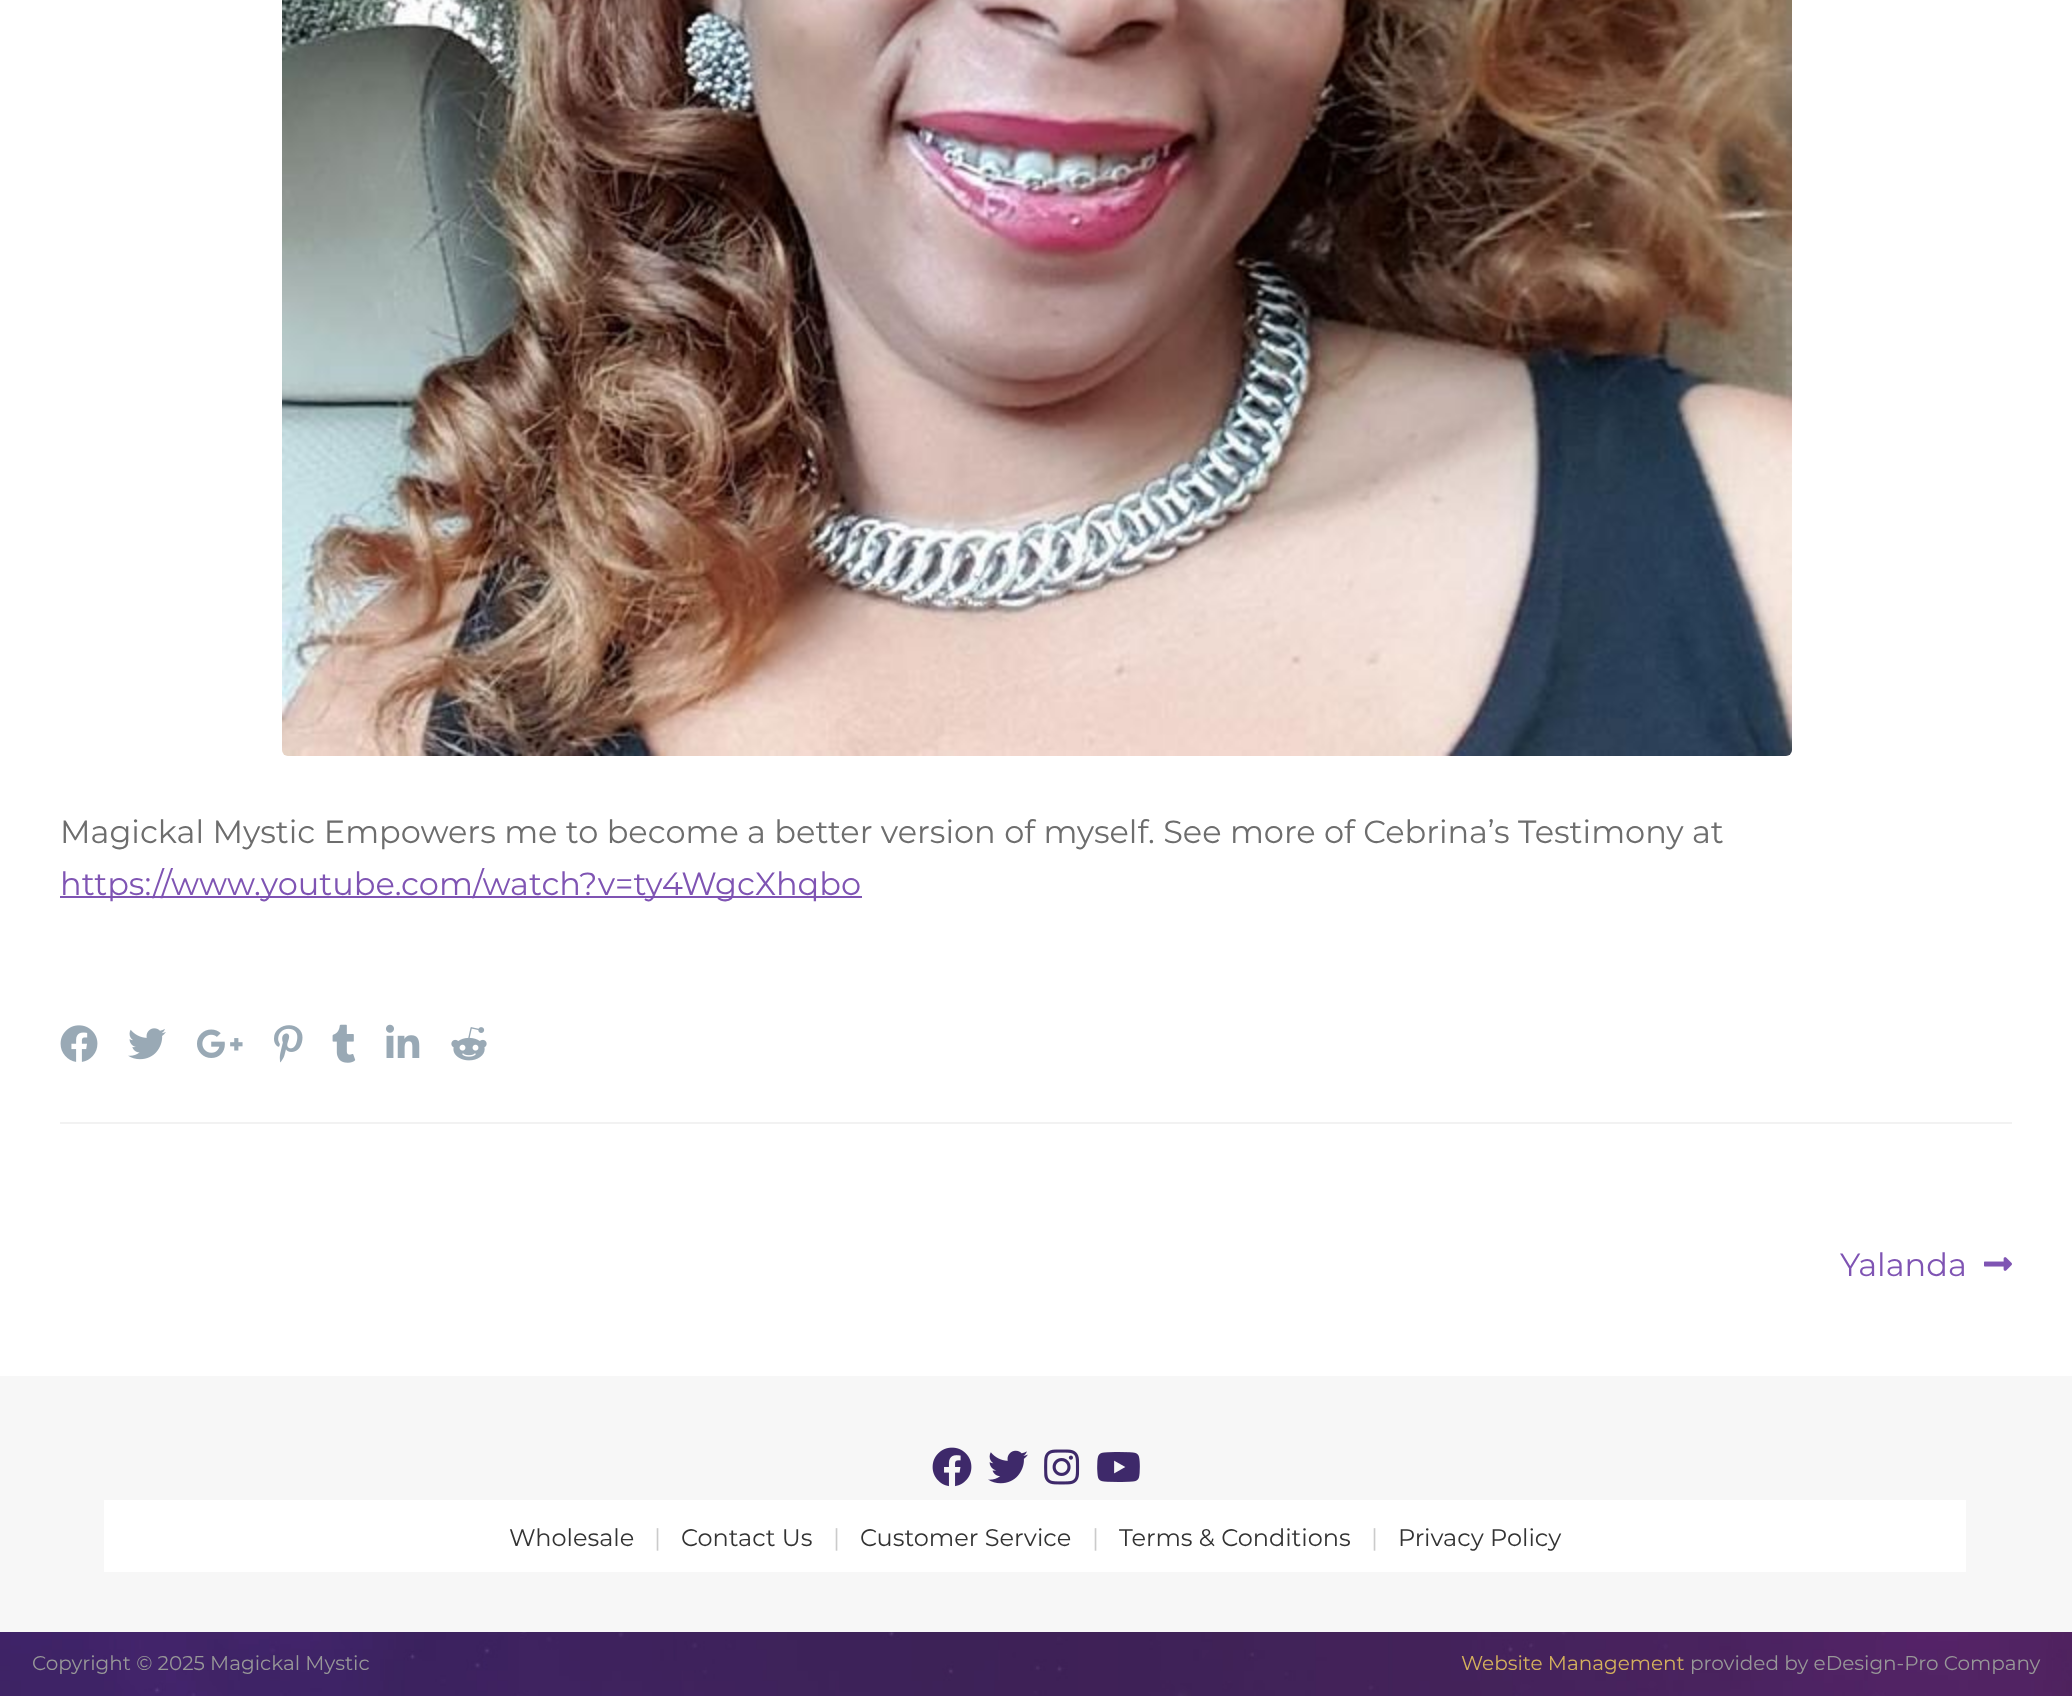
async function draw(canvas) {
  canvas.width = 2072;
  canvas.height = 1696;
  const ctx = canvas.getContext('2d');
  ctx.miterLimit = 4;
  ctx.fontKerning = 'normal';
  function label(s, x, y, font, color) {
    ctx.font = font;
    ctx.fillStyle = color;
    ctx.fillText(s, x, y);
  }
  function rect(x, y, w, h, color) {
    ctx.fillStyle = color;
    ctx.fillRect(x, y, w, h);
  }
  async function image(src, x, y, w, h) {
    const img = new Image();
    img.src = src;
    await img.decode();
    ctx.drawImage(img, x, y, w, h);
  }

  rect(0, 0, 2072, 1696, '#fff');
  await image('assets/img1.png', 282, 0, 1510, 756);
  label('Magickal Mystic Empowers me to become a better version of myself. See more of Cebrina’s Testimony at', 60, 843, '100 32px Montserrat', '#6d6d6d');
  rect(60, 896, 802, 2, '#7f54b3');
  label('https://www.youtube.com/watch?v=ty4WgcXhqbo', 60, 895, '100 32px Montserrat', '#7f54b3');
  await image('assets/img2.png', 60, 1025, 38, 37);
  await image('assets/img3.png', 128, 1028, 38, 32);
  await image('assets/img4.png', 197, 1029, 46, 29);
  await image('assets/img5.png', 274, 1025, 29, 38);
  await image('assets/img6.png', 332, 1024, 24, 39);
  await image('assets/img7.png', 386, 1024, 34, 34);
  await image('assets/img8.png', 451, 1027, 36, 34);
  rect(60, 1122, 1952, 2, '#f2f2f2');
  label('Yalanda', 1840, 1276, '100 32px Montserrat', '#7f54b3');
  await image('assets/img9.png', 1984, 1257, 28, 14);
  await image('assets/img10.png', 0, 1632, 2072, 64);
  rect(0, 1376, 2072, 256, '#f7f7f7');
  await image('assets/img11.png', 932, 1447, 40, 40);
  await image('assets/img12.png', 988, 1450, 40, 34);
  await image('assets/img13.png', 1044, 1449, 36, 36);
  await image('assets/img14.png', 1097, 1452, 43, 30);
  rect(104, 1500, 1862, 72, '#fff');
  label('Wholesale', 509, 1546, '100 24px Montserrat', '#333');
  label('|', 654, 1546, '100 24px Montserrat', '#cbcbcb');
  label('Contact Us', 681, 1546, '100 24px Montserrat', '#333');
  label('|', 833, 1546, '100 24px Montserrat', '#cbcbcb');
  label('Customer Service', 860, 1546, '100 24px Montserrat', '#333');
  label('|', 1092, 1546, '100 24px Montserrat', '#cbcbcb');
  label('Terms & Conditions', 1119, 1546, '100 24px Montserrat', '#333');
  label('|', 1371, 1546, '100 24px Montserrat', '#cbcbcb');
  label('Privacy Policy', 1398, 1546, '100 24px Montserrat', '#333');
  label('Copyright © 2025 Magickal Mystic', 32, 1670, '100 20px Montserrat', '#989898');
  label('Website Management', 1461, 1670, '100 20px Montserrat', '#d5b15d');
  label('provided by eDesign-Pro Company', 1690, 1670, '100 20px Montserrat', '#989898');
}

draw(document.querySelector('canvas'));
